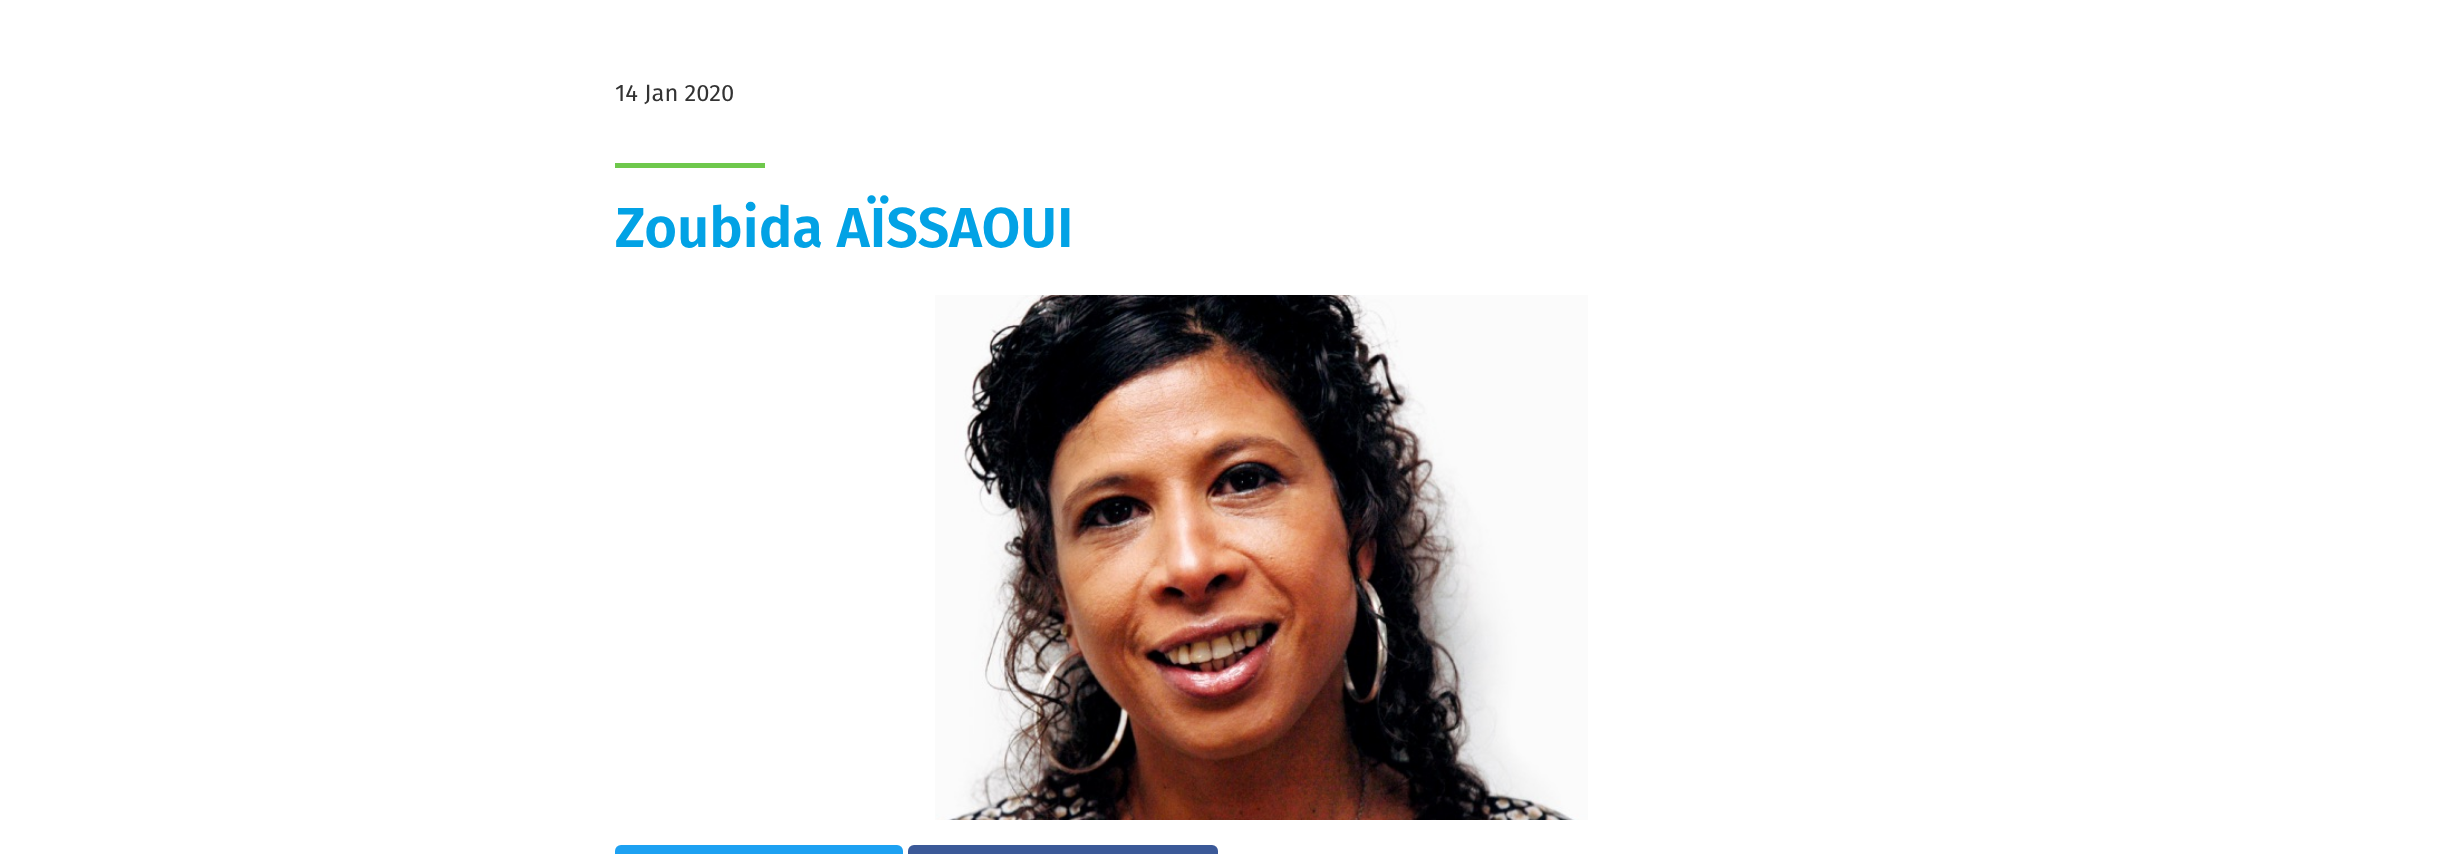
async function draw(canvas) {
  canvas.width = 2442;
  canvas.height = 854;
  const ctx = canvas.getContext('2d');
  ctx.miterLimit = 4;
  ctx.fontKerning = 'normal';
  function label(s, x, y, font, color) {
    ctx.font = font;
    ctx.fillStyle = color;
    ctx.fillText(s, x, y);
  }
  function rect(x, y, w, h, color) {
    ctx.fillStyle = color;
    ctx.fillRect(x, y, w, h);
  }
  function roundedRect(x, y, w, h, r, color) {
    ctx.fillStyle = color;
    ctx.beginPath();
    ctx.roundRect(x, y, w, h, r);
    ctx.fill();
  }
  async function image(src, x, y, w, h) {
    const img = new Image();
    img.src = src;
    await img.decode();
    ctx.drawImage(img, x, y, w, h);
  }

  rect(0, 0, 2442, 854, '#fff');
  label('14 Jan 2020', 615, 101, '23.75px Fira Sans', '#333');
  rect(615, 163, 150, 5, '#6fc84c');
  label('Zoubida AÏSSAOUI', 615, 247, '600 56.25px Fira Sans', '#02a2e5');
  await image('assets/img1.png', 935, 295, 653, 525);
  roundedRect(615, 845, 288, 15, 6, '#1da1f2');
  roundedRect(908, 845, 310, 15, 6, '#3b5998');
}

draw(document.querySelector('canvas'));
